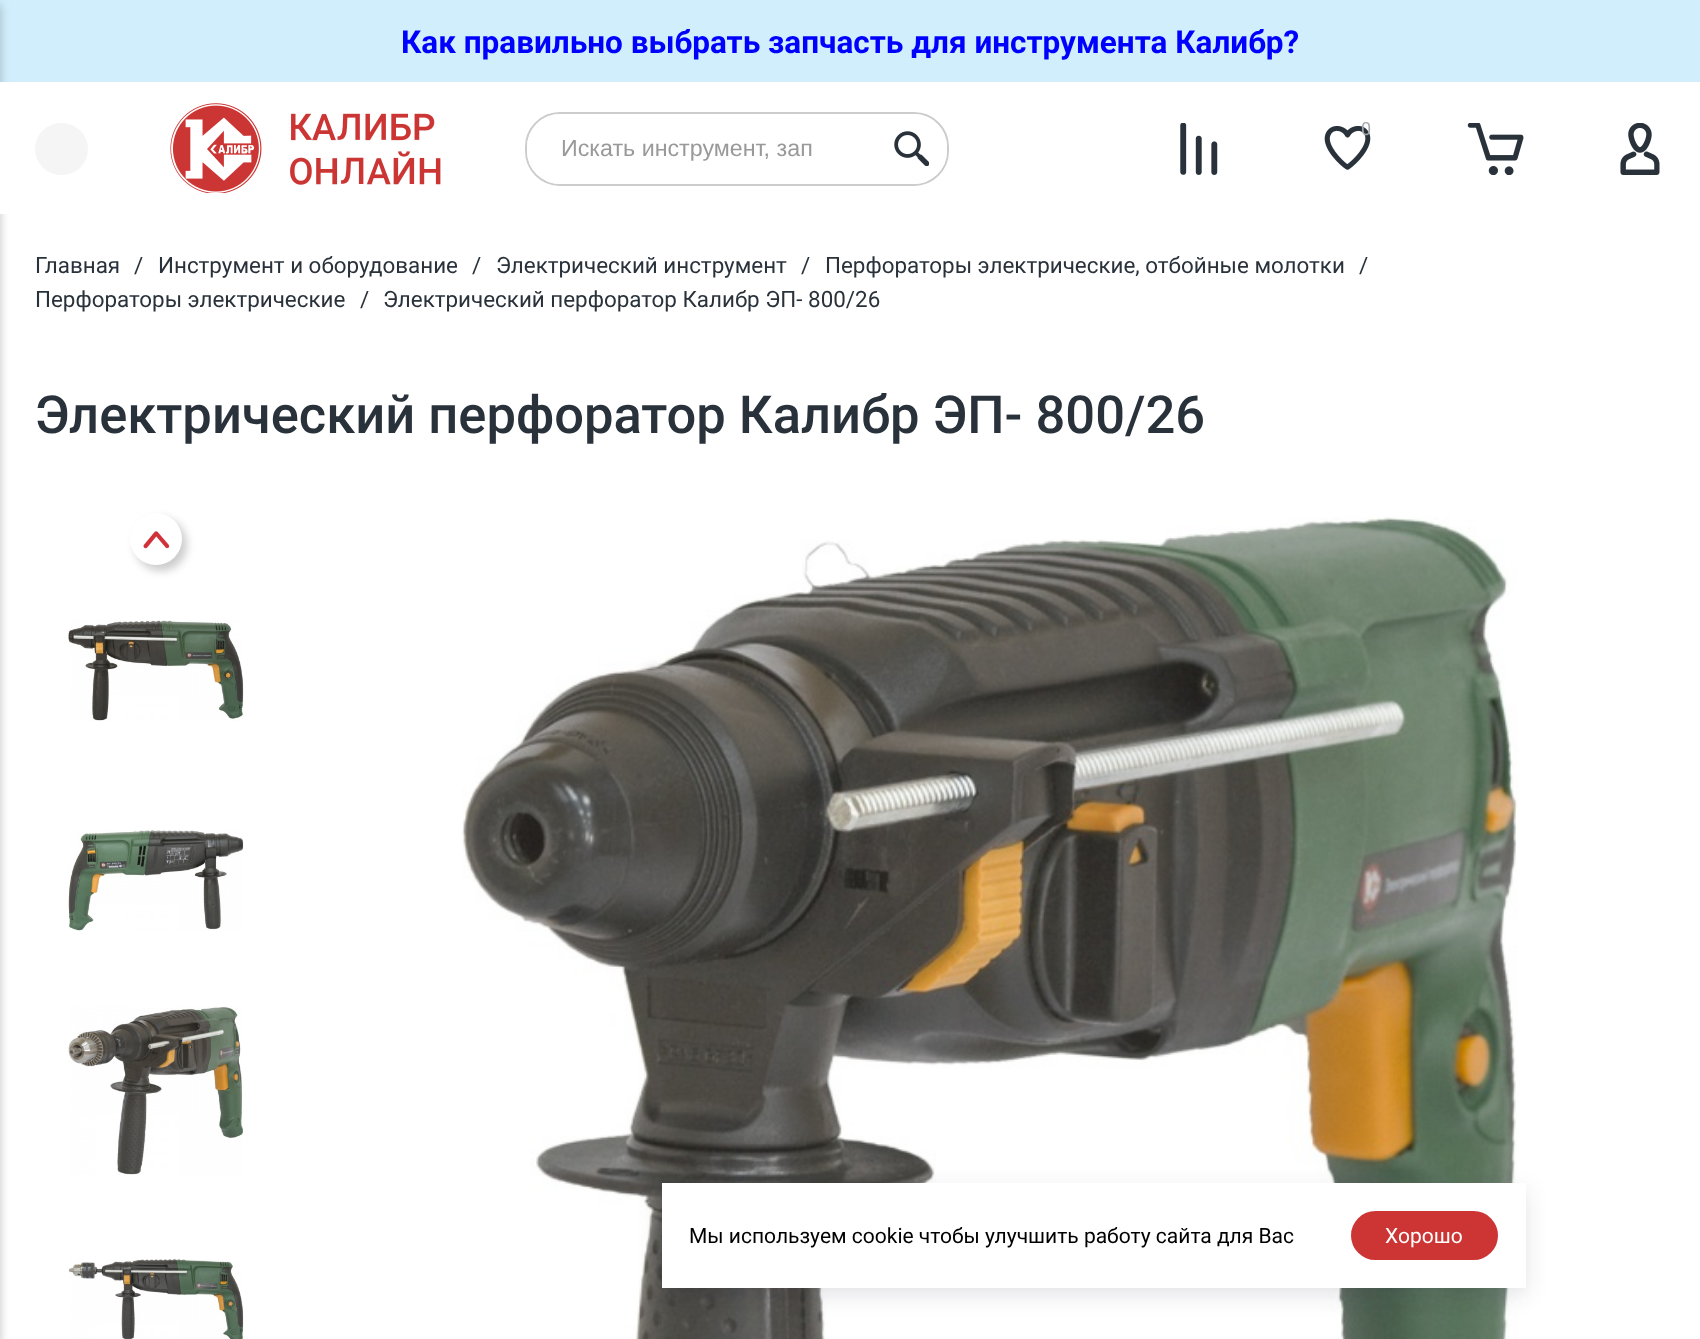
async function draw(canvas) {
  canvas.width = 1700;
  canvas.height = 1339;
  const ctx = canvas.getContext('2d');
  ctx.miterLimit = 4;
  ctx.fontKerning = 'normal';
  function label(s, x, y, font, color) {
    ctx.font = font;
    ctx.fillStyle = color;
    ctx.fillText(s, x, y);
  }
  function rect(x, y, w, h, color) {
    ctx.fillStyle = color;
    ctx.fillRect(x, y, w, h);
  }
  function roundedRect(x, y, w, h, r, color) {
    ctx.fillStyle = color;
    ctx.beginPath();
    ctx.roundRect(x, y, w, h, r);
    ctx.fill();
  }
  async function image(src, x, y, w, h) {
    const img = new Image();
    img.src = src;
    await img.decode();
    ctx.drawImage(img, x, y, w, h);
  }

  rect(0, 0, 1700, 1339, '#fff');
  rect(0, 0, 1700, 82, '#d1eefc');
  ctx.fillStyle = '#3232324d';
  ctx.filter = 'blur(5px)';
  ctx.beginPath();
  ctx.rect(-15, 5, 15, 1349);
  ctx.fill();
  ctx.filter = 'none';
  label('Как правильно выбрать запчасть для инструмента Калибр?', 401, 53, 'bold 31.5px Roboto', '#00f');
  rect(0, 82, 9, 132, '#fff');
  roundedRect(35, 123, 53, 52, 26, '#f5f5f5');
  await image('assets/img1.png', 170, 103, 271, 90);
  ctx.beginPath();
  ctx.roundRect(526, 113, 422, 72, 34);
  ctx.strokeStyle = '#ccc';
  ctx.lineWidth = 2;
  ctx.stroke();
  ctx.fillStyle = '#fff';
  ctx.beginPath();
  ctx.roundRect(527, 114, 350, 70, [33, 0, 0, 33]);
  ctx.fill();
  label('Искать инструмент, зап', 561, 156, '23.25px Liberation Sans', '#999');
  ctx.fillStyle = '#fff';
  ctx.beginPath();
  ctx.roundRect(877, 114, 70, 70, [0, 33, 33, 0]);
  ctx.fill();
  await image('assets/img2.png', 894, 131, 35, 35);
  await image('assets/img3.png', 1180, 123, 38, 52);
  await image('assets/img4.png', 1324, 126, 47, 44);
  label('0', 1361, 135, '18px Roboto', '#a5a9ad');
  await image('assets/img5.png', 1467, 123, 57, 52);
  await image('assets/img6.png', 1620, 123, 40, 52);
  label('Главная', 35, 273, '22.4px Roboto', '#29323b');
  label('/', 134, 273, '22.4px Roboto', '#29323b');
  label('Инструмент и оборудование', 158, 273, '22.4px Roboto', '#29323b');
  label('/', 472, 273, '22.4px Roboto', '#29323b');
  label('Электрический инструмент', 496, 273, '22.4px Roboto', '#29323b');
  label('/', 801, 273, '22.4px Roboto', '#29323b');
  label('Перфораторы электрические, отбойные молотки', 825, 273, '22.4px Roboto', '#29323b');
  label('/', 1359, 273, '22.4px Roboto', '#29323b');
  label('Перфораторы электрические', 35, 307, '22.4px Roboto', '#29323b');
  label('/', 360, 307, '22.4px Roboto', '#29323b');
  label('Электрический перфоратор Калибр ЭП- 800/26', 383, 307, '22.4px Roboto', '#29323b');
  label('Электрический перфоратор Калибр ЭП- 800/26', 35, 433, '500 52.5px Roboto', '#29323b');
  ctx.fillStyle = '#01010133';
  ctx.filter = 'blur(4.5px)';
  ctx.beginPath();
  ctx.roundRect(135, 518, 52, 53, 26);
  ctx.fill();
  ctx.filter = 'none';
  ctx.fillStyle = '#fff';
  ctx.beginPath();
  ctx.arc(156, 539, 26, 0, 2 * Math.PI);
  ctx.fill();
  await image('assets/img7.png', 143, 531, 27, 18);
  await image('assets/img8.png', 68, 620, 176, 101);
  await image('assets/img9.png', 68, 830, 176, 101);
  await image('assets/img10.png', 68, 1006, 176, 169);
  await image('assets/img11.png', 68, 1259, 176, 80);
  await image('assets/img12.png', 462, 517, 1056, 822);
  ctx.fillStyle = '#191a371f';
  ctx.filter = 'blur(10.5px)';
  ctx.beginPath();
  ctx.rect(662, 1190, 864, 105);
  ctx.fill();
  ctx.filter = 'none';
  rect(662, 1183, 864, 105, '#fff');
  label('Мы используем cookie чтобы улучшить работу сайта для Вас', 689, 1243, '21px Roboto', '#000');
  roundedRect(1351, 1211, 147, 49, 24.5, '#cc3533');
  label('Хорошо', 1385, 1243, '21px Roboto', '#fff');
}

draw(document.querySelector('canvas'));
